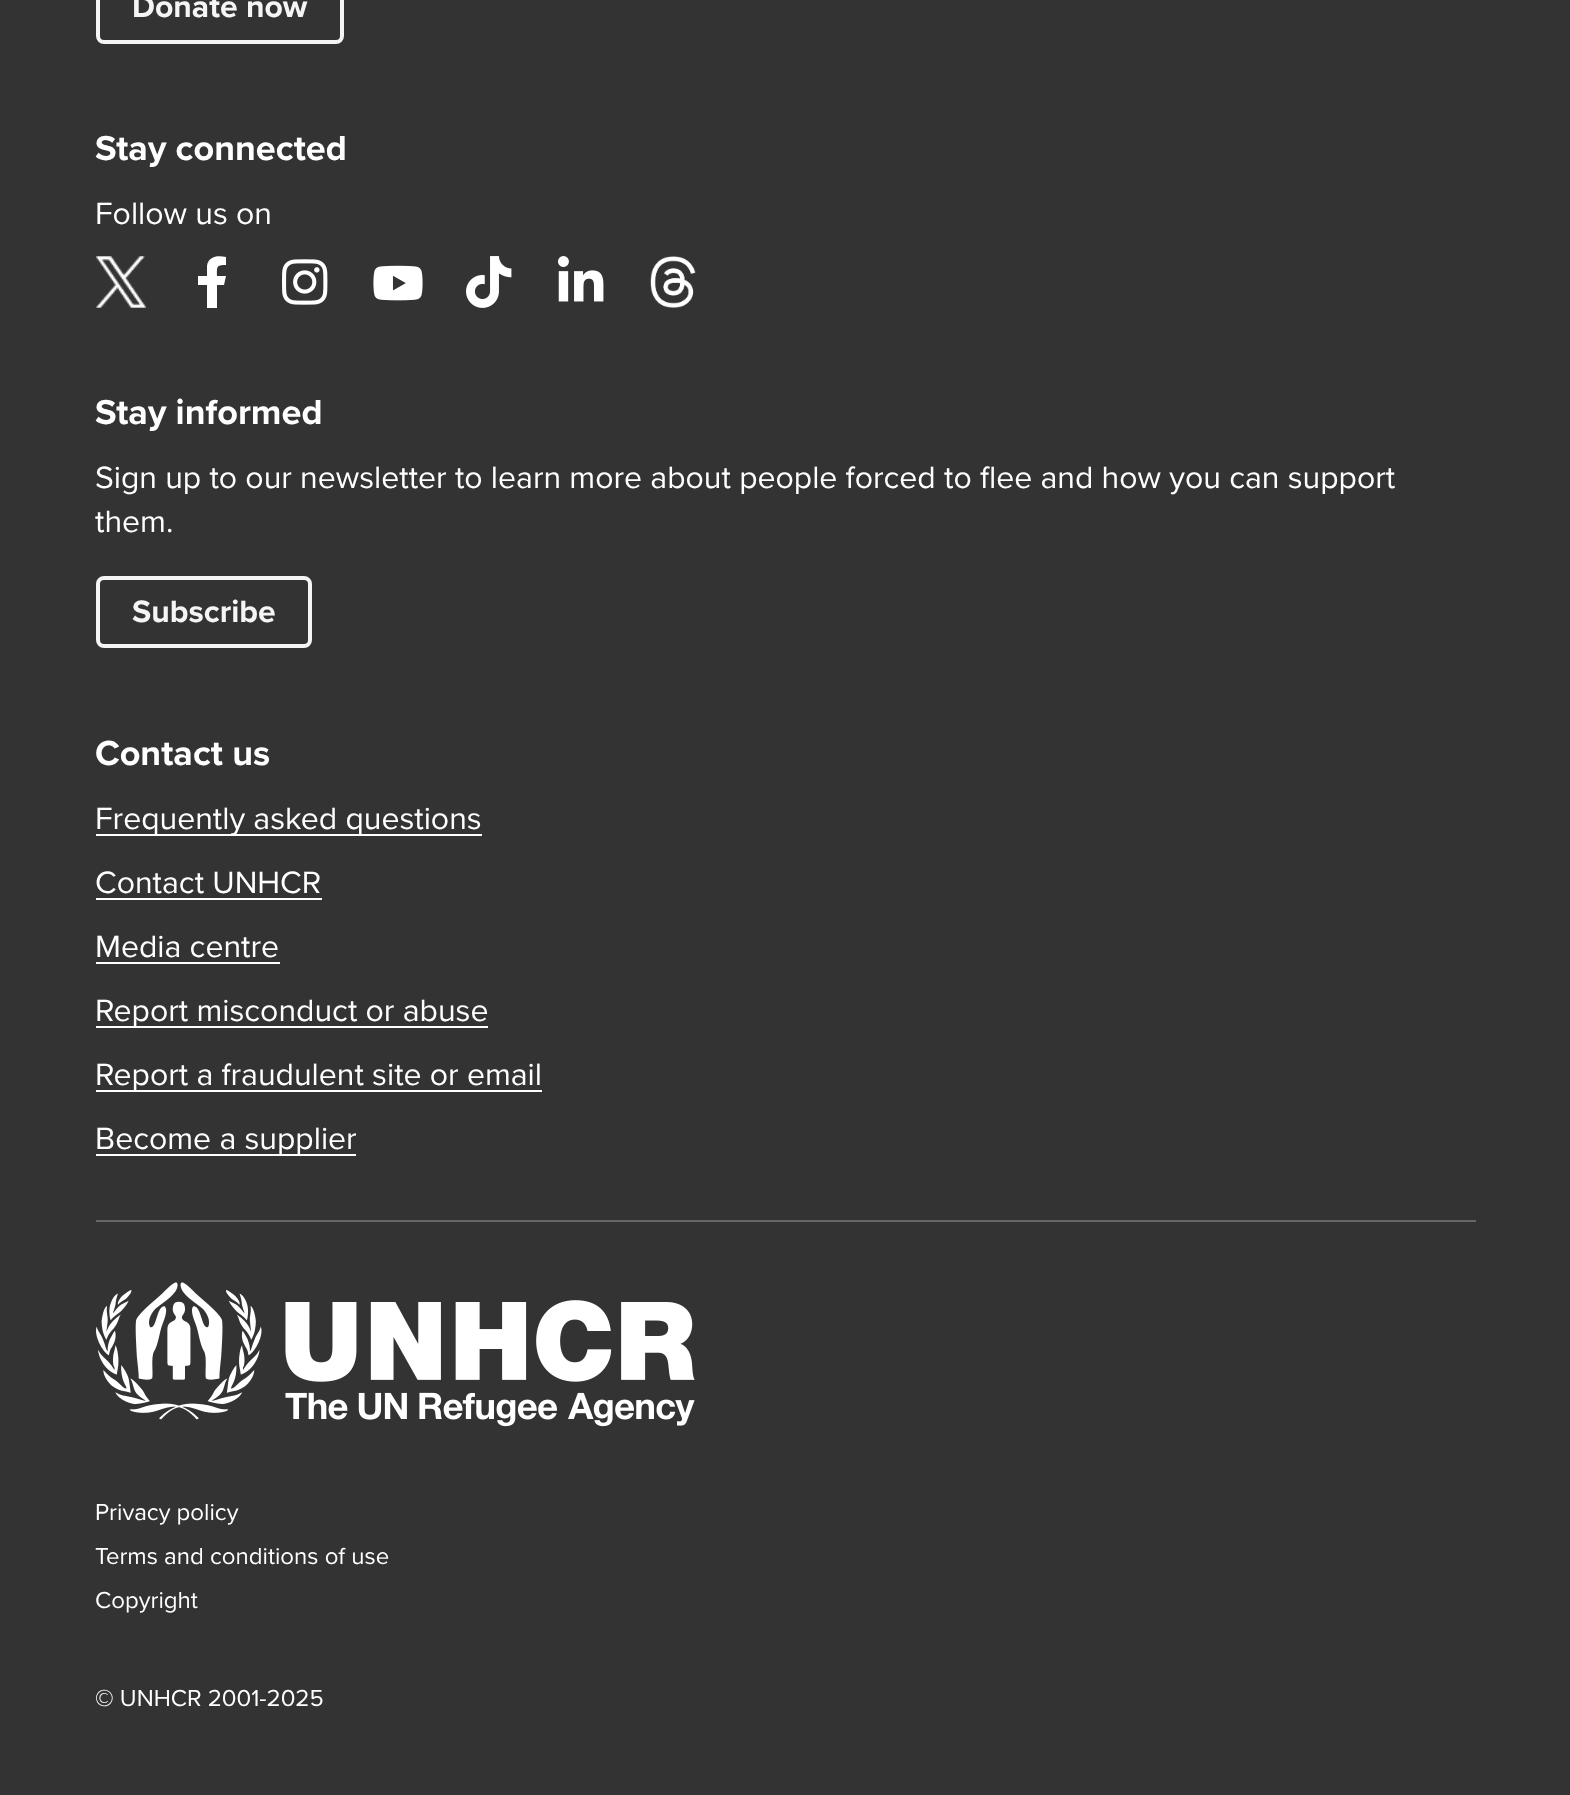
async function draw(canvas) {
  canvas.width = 1570;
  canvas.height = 1795;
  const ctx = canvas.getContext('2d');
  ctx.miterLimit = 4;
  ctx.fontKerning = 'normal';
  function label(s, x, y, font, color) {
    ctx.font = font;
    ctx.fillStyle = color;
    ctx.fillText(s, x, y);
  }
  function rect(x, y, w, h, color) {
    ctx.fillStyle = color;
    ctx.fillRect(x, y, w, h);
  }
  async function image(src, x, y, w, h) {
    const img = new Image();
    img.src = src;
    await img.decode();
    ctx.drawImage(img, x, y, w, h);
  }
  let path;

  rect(0, 0, 1570, 1795, '#333');
  ctx.beginPath();
  ctx.roundRect(98, -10, 244, 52, 6);
  ctx.strokeStyle = '#f5f5f5';
  ctx.lineWidth = 4;
  ctx.stroke();
  label('Donate now', 132, 17, 'bold 32px Proxima Nova', '#f5f5f5');
  label('Stay connected', 95, 160, 'bold 36px Proxima Nova', '#fff');
  label('Follow us on', 95, 224, '32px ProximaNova', '#fff');
  await image('assets/img1.png', 96, 256, 50, 52);
  path = new Path2D('M224 285L226 276H217C217 267 216 265 226 265V257C218 255 208 256 207 266V276H198V285H207V308H217V285Z');
  ctx.fill(path);
  await image('assets/img2.png', 282, 259, 46, 46);
  await image('assets/img3.png', 373, 265, 50, 36);
  await image('assets/img4.png', 466, 256, 46, 52);
  await image('assets/img5.png', 558, 256, 46, 46);
  await image('assets/img6.png', 650, 256, 46, 52);
  label('Stay informed', 95, 424, 'bold 36px Proxima Nova', '#fff');
  label('Sign up to our newsletter to learn more about people forced to flee and how you can support', 95, 488, '32px ProximaNova', '#fff');
  label('them.', 95, 532, '32px ProximaNova', '#fff');
  ctx.beginPath();
  ctx.roundRect(98, 578, 212, 68, 6);
  ctx.stroke();
  label('Subscribe', 132, 622, 'bold 32px Proxima Nova', '#f5f5f5');
  label('Contact us', 95, 765, 'bold 36px Proxima Nova', '#fff');
  rect(96, 834, 386, 2, '#fff');
  label('Frequently asked questions', 95, 829, '32px ProximaNova', '#fff');
  label('Contact UNHCR', 95, 893, '32px ProximaNova', '#fff');
  rect(96, 898, 226, 2, '#fff');
  label('Media centre', 95, 957, '32px ProximaNova', '#fff');
  rect(96, 962, 184, 2, '#fff');
  rect(96, 1026, 392, 2, '#fff');
  label('Report misconduct or abuse', 95, 1021, '32px ProximaNova', '#fff');
  rect(96, 1090, 446, 2, '#fff');
  label('Report a fraudulent site or email', 95, 1085, '32px ProximaNova', '#fff');
  rect(96, 1154, 260, 2, '#fff');
  label('Become a supplier', 95, 1149, '32px ProximaNova', '#fff');
  rect(96, 1220, 1380, 2, '#666');
  await image('assets/img7.png', 96, 1282, 599, 145);
  label('Privacy policy', 95, 1520, '24px ProximaNova', '#fff');
  label('Terms and conditions of use', 95, 1564, '24px ProximaNova', '#fff');
  label('Copyright', 95, 1608, '24px ProximaNova', '#fff');
  label('© UNHCR 2001-2025', 95, 1706, '24px ProximaNova', '#fff');
}

draw(document.querySelector('canvas'));
